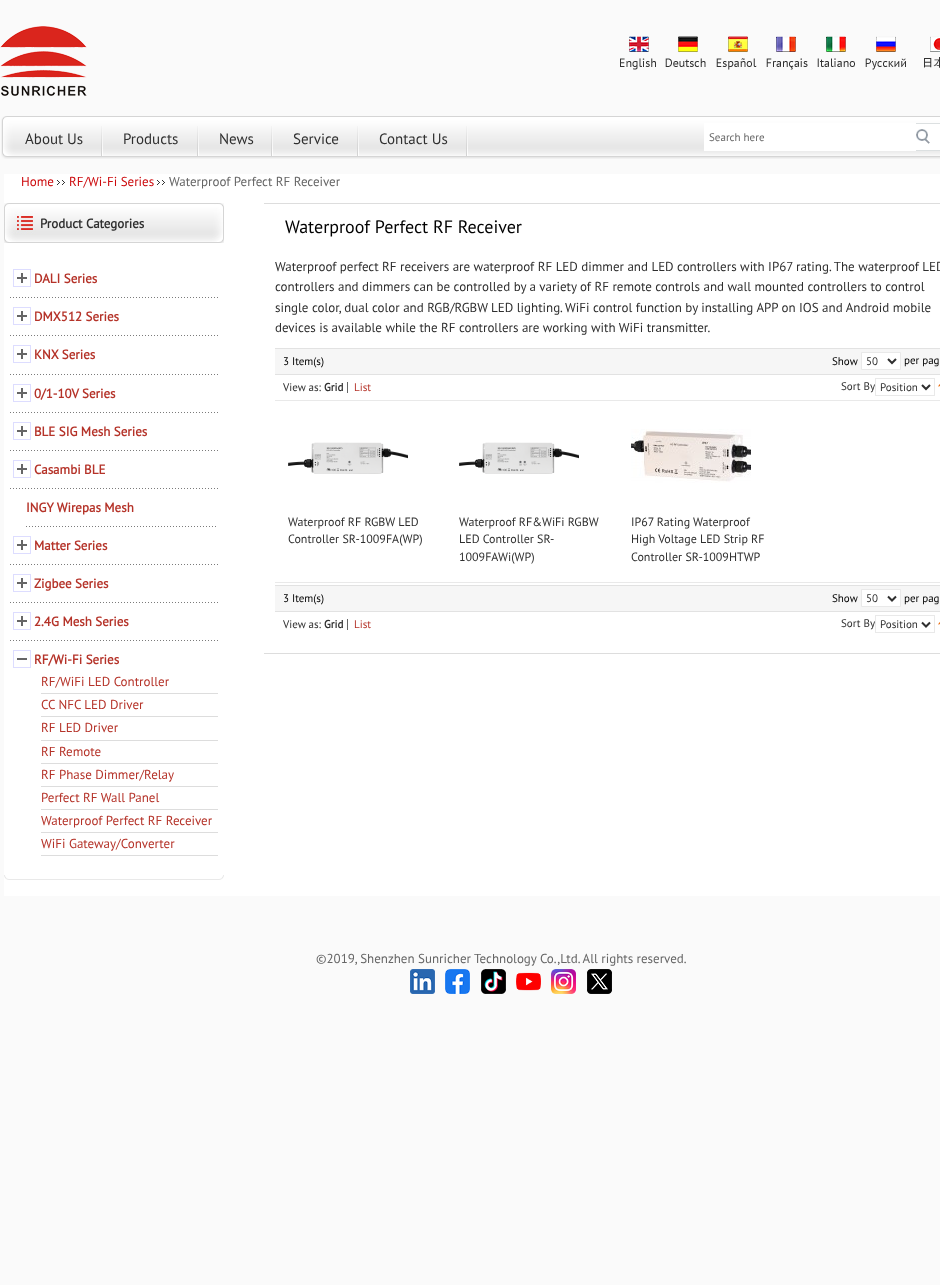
async function draw(canvas) {
  canvas.width = 940;
  canvas.height = 1285;
  const ctx = canvas.getContext('2d');
  ctx.miterLimit = 4;
  ctx.fontKerning = 'normal';
  function label(s, x, y, font, color) {
    ctx.font = font;
    ctx.fillStyle = color;
    ctx.fillText(s, x, y);
  }
  function rect(x, y, w, h, color) {
    ctx.fillStyle = color;
    ctx.fillRect(x, y, w, h);
  }
  async function image(src, x, y, w, h) {
    const img = new Image();
    img.src = src;
    await img.decode();
    ctx.drawImage(img, x, y, w, h);
  }
  let path;

  rect(0, 0, 940, 1285, '#fafafa');
  await image('assets/img1.png', 0, 26, 87, 70);
  await image('assets/img2.png', 620, 36, 36, 34);
  await image('assets/img3.png', 665, 36, 41, 31);
  await image('assets/img4.png', 716, 36, 41, 34);
  await image('assets/img5.png', 766, 36, 42, 34);
  await image('assets/img6.png', 817, 36, 38, 31);
  await image('assets/img7.png', 865, 36, 41, 34);
  await image('assets/img8.png', 924, 36, 16, 32);
  await image('assets/img9.png', 1, 116, 939, 43);
  await image('assets/img10.png', 101, 126, 2, 30);
  label('About Us', 25, 144, '15px PT Sans', '#2f2f2f');
  await image('assets/img10.png', 197, 126, 2, 30);
  label('Products', 123, 144, '15px PT Sans', '#2f2f2f');
  await image('assets/img10.png', 271, 126, 2, 30);
  label('News', 219, 144, '15px PT Sans', '#2f2f2f');
  await image('assets/img10.png', 357, 126, 2, 30);
  label('Service', 293, 144, '15px PT Sans', '#2f2f2f');
  await image('assets/img10.png', 466, 126, 2, 30);
  label('Contact Us', 379, 144, '15px PT Sans', '#2f2f2f');
  rect(704, 123, 212, 28, '#fff');
  label('Search here', 709, 141, '11px PT Sans', '#666');
  await image('assets/img11.png', 916, 123, 24, 28);
  rect(4, 174, 936, 722, '#fff');
  label('Home', 21, 186, '13px PT Sans', '#cc0a0d');
  await image('assets/img12.png', 57, 180, 8, 5);
  label('RF/Wi-Fi Series', 69, 186, '13px PT Sans', '#cc0a0d');
  await image('assets/img12.png', 157, 180, 8, 5);
  label('Waterproof Perfect RF Receiver', 169, 186, '13px PT Sans', '#666');
  await image('assets/img13.png', 4, 875, 220, 5);
  await image('assets/img14.png', 4, 203, 220, 40);
  label('Product Categories', 40, 228, 'bold 13px PT Sans', '#2f2f2f');
  await image('assets/img15.png', 10, 297, 208, 1);
  await image('assets/img16.png', 17, 273, 10, 10);
  ctx.strokeStyle = '#ddf';
  ctx.strokeRect(13.5, 269.5, 17, 17);
  label('DALI Series', 34, 283, 'bold 13px PT Sans', '#b53329');
  await image('assets/img15.png', 10, 335, 208, 1);
  await image('assets/img16.png', 17, 311, 10, 10);
  ctx.strokeRect(13.5, 307.5, 17, 17);
  label('DMX512 Series', 34, 321, 'bold 13px PT Sans', '#b53329');
  await image('assets/img15.png', 10, 374, 208, 1);
  await image('assets/img16.png', 17, 349, 10, 10);
  ctx.strokeRect(13.5, 345.5, 17, 17);
  label('KNX Series', 34, 359, 'bold 13px PT Sans', '#b53329');
  await image('assets/img15.png', 10, 412, 208, 1);
  await image('assets/img16.png', 17, 388, 10, 10);
  ctx.strokeRect(13.5, 384.5, 17, 17);
  label('0/1-10V Series', 34, 398, 'bold 13px PT Sans', '#b53329');
  await image('assets/img15.png', 10, 450, 208, 1);
  await image('assets/img16.png', 17, 426, 10, 10);
  ctx.strokeRect(13.5, 422.5, 17, 17);
  label('BLE SIG Mesh Series', 34, 436, 'bold 13px PT Sans', '#b53329');
  await image('assets/img15.png', 10, 488, 208, 1);
  await image('assets/img16.png', 17, 464, 10, 10);
  ctx.strokeRect(13.5, 460.5, 17, 17);
  label('Casambi BLE', 34, 474, 'bold 13px PT Sans', '#b53329');
  await image('assets/img17.png', 26, 526, 190, 1);
  label('INGY Wirepas Mesh', 26, 512, 'bold 13px PT Sans', '#b53329');
  await image('assets/img15.png', 10, 564, 208, 1);
  await image('assets/img16.png', 17, 540, 10, 10);
  ctx.strokeRect(13.5, 536.5, 17, 17);
  label('Matter Series', 34, 550, 'bold 13px PT Sans', '#b53329');
  await image('assets/img15.png', 10, 602, 208, 1);
  await image('assets/img16.png', 17, 578, 10, 10);
  ctx.strokeRect(13.5, 574.5, 17, 17);
  label('Zigbee Series', 34, 588, 'bold 13px PT Sans', '#b53329');
  await image('assets/img15.png', 10, 640, 208, 1);
  await image('assets/img16.png', 17, 616, 10, 10);
  ctx.strokeRect(13.5, 612.5, 17, 17);
  label('2.4G Mesh Series', 34, 626, 'bold 13px PT Sans', '#b53329');
  rect(17, 658, 10, 2, '#666');
  ctx.strokeRect(13.5, 650.5, 17, 17);
  label('RF/Wi-Fi Series', 34, 664, 'bold 13px PT Sans', '#b53329');
  rect(41, 693, 177, 1, '#ddd');
  label('RF/WiFi LED Controller', 41, 686, '13px PT Sans', '#b53329');
  rect(41, 716, 177, 1, '#ddd');
  label('CC NFC LED Driver', 41, 709, '13px PT Sans', '#b53329');
  rect(41, 740, 177, 1, '#ddd');
  label('RF LED Driver', 41, 732, '13px PT Sans', '#b53329');
  rect(41, 763, 177, 1, '#ddd');
  label('RF Remote', 41, 756, '13px PT Sans', '#b53329');
  rect(41, 786, 177, 1, '#ddd');
  label('RF Phase Dimmer/Relay', 41, 779, '13px PT Sans', '#b53329');
  rect(41, 809, 177, 1, '#ddd');
  label('Perfect RF Wall Panel', 41, 802, '13px PT Sans', '#b53329');
  rect(41, 832, 177, 1, '#ddd');
  label('Waterproof Perfect RF Receiver', 41, 825, '13px PT Sans', '#b53329');
  rect(41, 855, 177, 1, '#ddd');
  label('WiFi Gateway/Converter', 41, 848, '13px PT Sans', '#b53329');
  rect(264, 203, 676, 1, '#ddd');
  label('Waterproof Perfect RF Receiver', 285, 233, '18px PT Sans', '#010101');
  label('Waterproof perfect RF receivers are waterproof RF LED dimmer and LED controllers with IP67 rating. The waterproof LED', 275, 271, '13px PT Sans', '#2f2f2f');
  label('controllers and dimmers can be controlled by a variety of RF remote controls and wall mounted controllers to control', 275, 291, '13px PT Sans', '#2f2f2f');
  label('single color, dual color and RGB/RGBW LED lighting. WiFi control function by installing APP on IOS and Android mobile', 275, 312, '13px PT Sans', '#2f2f2f');
  label('devices is available while the RF controllers are working with WiFi transmitter.', 275, 332, '13px PT Sans', '#2f2f2f');
  rect(275, 349, 665, 25, '#f6f6f6');
  rect(275, 348, 665, 1, '#e2e2e2');
  label('3 Item(s)', 283, 365, '11px PT Sans', '#010101');
  label('Show', 832, 365, '11px PT Sans', '#010101');
  ctx.fillStyle = '#fff';
  ctx.beginPath();
  ctx.rect(861.5, 352.5, 39, 17);
  ctx.fill();
  ctx.strokeStyle = '#e9e9e9';
  ctx.stroke();
  path = new Path2D('M888 359L892 363L896 359');
  ctx.strokeStyle = '#2f2f2f';
  ctx.lineWidth = 2;
  ctx.stroke(path);
  label('50', 866, 365, '11px PT Sans', '#2f2f2f');
  label('per pag', 904, 364, '11px PT Sans', '#010101');
  rect(275, 374, 665, 1, '#e2e2e2');
  rect(275, 400, 665, 1, '#e9e9e9');
  label('View as:', 283, 391, '11px PT Sans', '#2f2f2f');
  label('Grid', 324, 391, 'bold 11px PT Sans', '#2f2f2f');
  rect(347, 382, 1, 11, '#666');
  label('List', 354, 391, '11px PT Sans', '#b53329');
  label('Sort By', 841, 390, '11px PT Sans', '#2f2f2f');
  ctx.strokeStyle = '#e9e9e9';
  ctx.lineWidth = 1;
  ctx.strokeRect(875.5, 378.5, 59, 17);
  path = new Path2D('M922 385L926 389L930 385');
  ctx.strokeStyle = '#2f2f2f';
  ctx.lineWidth = 2;
  ctx.stroke(path);
  label('Position', 880, 391, '11px PT Sans', '#2f2f2f');
  await image('assets/img18.png', 938, 384, 2, 3);
  rect(275, 582, 665, 1, '#e9e9e9');
  await image('assets/img19.png', 288, 442, 120, 32);
  label('Waterproof RF RGBW LED', 288, 526, '12px PT Sans', '#2f2f2f');
  label('Controller SR-1009FA(WP)', 288, 543, '12px PT Sans', '#2f2f2f');
  await image('assets/img20.png', 459, 442, 120, 32);
  label('Waterproof RF&WiFi RGBW', 459, 526, '12px PT Sans', '#2f2f2f');
  label('LED Controller SR-', 459, 543, '12px PT Sans', '#2f2f2f');
  label('1009FAWi(WP)', 459, 561, '12px PT Sans', '#2f2f2f');
  await image('assets/img21.png', 631, 429, 120, 54);
  label('IP67 Rating Waterproof', 631, 526, '12px PT Sans', '#2f2f2f');
  label('High Voltage LED Strip RF', 631, 543, '12px PT Sans', '#2f2f2f');
  label('Controller SR-1009HTWP', 631, 561, '12px PT Sans', '#2f2f2f');
  rect(275, 586, 665, 25, '#f6f6f6');
  rect(275, 585, 665, 1, '#e2e2e2');
  label('3 Item(s)', 283, 602, '11px PT Sans', '#010101');
  label('Show', 832, 602, '11px PT Sans', '#010101');
  ctx.fillStyle = '#fff';
  ctx.beginPath();
  ctx.rect(861.5, 589.5, 39, 17);
  ctx.fill();
  ctx.strokeStyle = '#e9e9e9';
  ctx.lineWidth = 1;
  ctx.stroke();
  path = new Path2D('M888 596.5L892 600.5L896 596.5');
  ctx.strokeStyle = '#2f2f2f';
  ctx.lineWidth = 2;
  ctx.stroke(path);
  label('50', 866, 602, '11px PT Sans', '#2f2f2f');
  label('per pag', 904, 602, '11px PT Sans', '#010101');
  rect(275, 611, 665, 1, '#e2e2e2');
  label('View as:', 283, 628, '11px PT Sans', '#2f2f2f');
  label('Grid', 324, 628, 'bold 11px PT Sans', '#2f2f2f');
  rect(347, 619, 1, 11, '#666');
  label('List', 354, 628, '11px PT Sans', '#b53329');
  label('Sort By', 841, 627, '11px PT Sans', '#2f2f2f');
  ctx.strokeStyle = '#e9e9e9';
  ctx.lineWidth = 1;
  ctx.strokeRect(875.5, 615.5, 59, 17);
  path = new Path2D('M922 622.5L926 626.5L930 622.5');
  ctx.strokeStyle = '#2f2f2f';
  ctx.lineWidth = 2;
  ctx.stroke(path);
  label('Position', 880, 628, '11px PT Sans', '#2f2f2f');
  await image('assets/img18.png', 938, 622, 2, 3);
  rect(264, 653, 676, 1, '#ddd');
  label('©2019, Shenzhen Sunricher Technology Co.,Ltd. All rights reserved.', 316, 963, '13px PT Sans', '#666');
  await image('assets/img22.png', 410, 969, 25, 25);
  await image('assets/img23.png', 445, 969, 25, 25);
  await image('assets/img24.png', 481, 969, 25, 25);
  await image('assets/img25.png', 516, 972, 25, 19);
  await image('assets/img26.png', 551, 969, 25, 25);
  await image('assets/img27.png', 587, 969, 25, 25);
}

draw(document.querySelector('canvas'));
